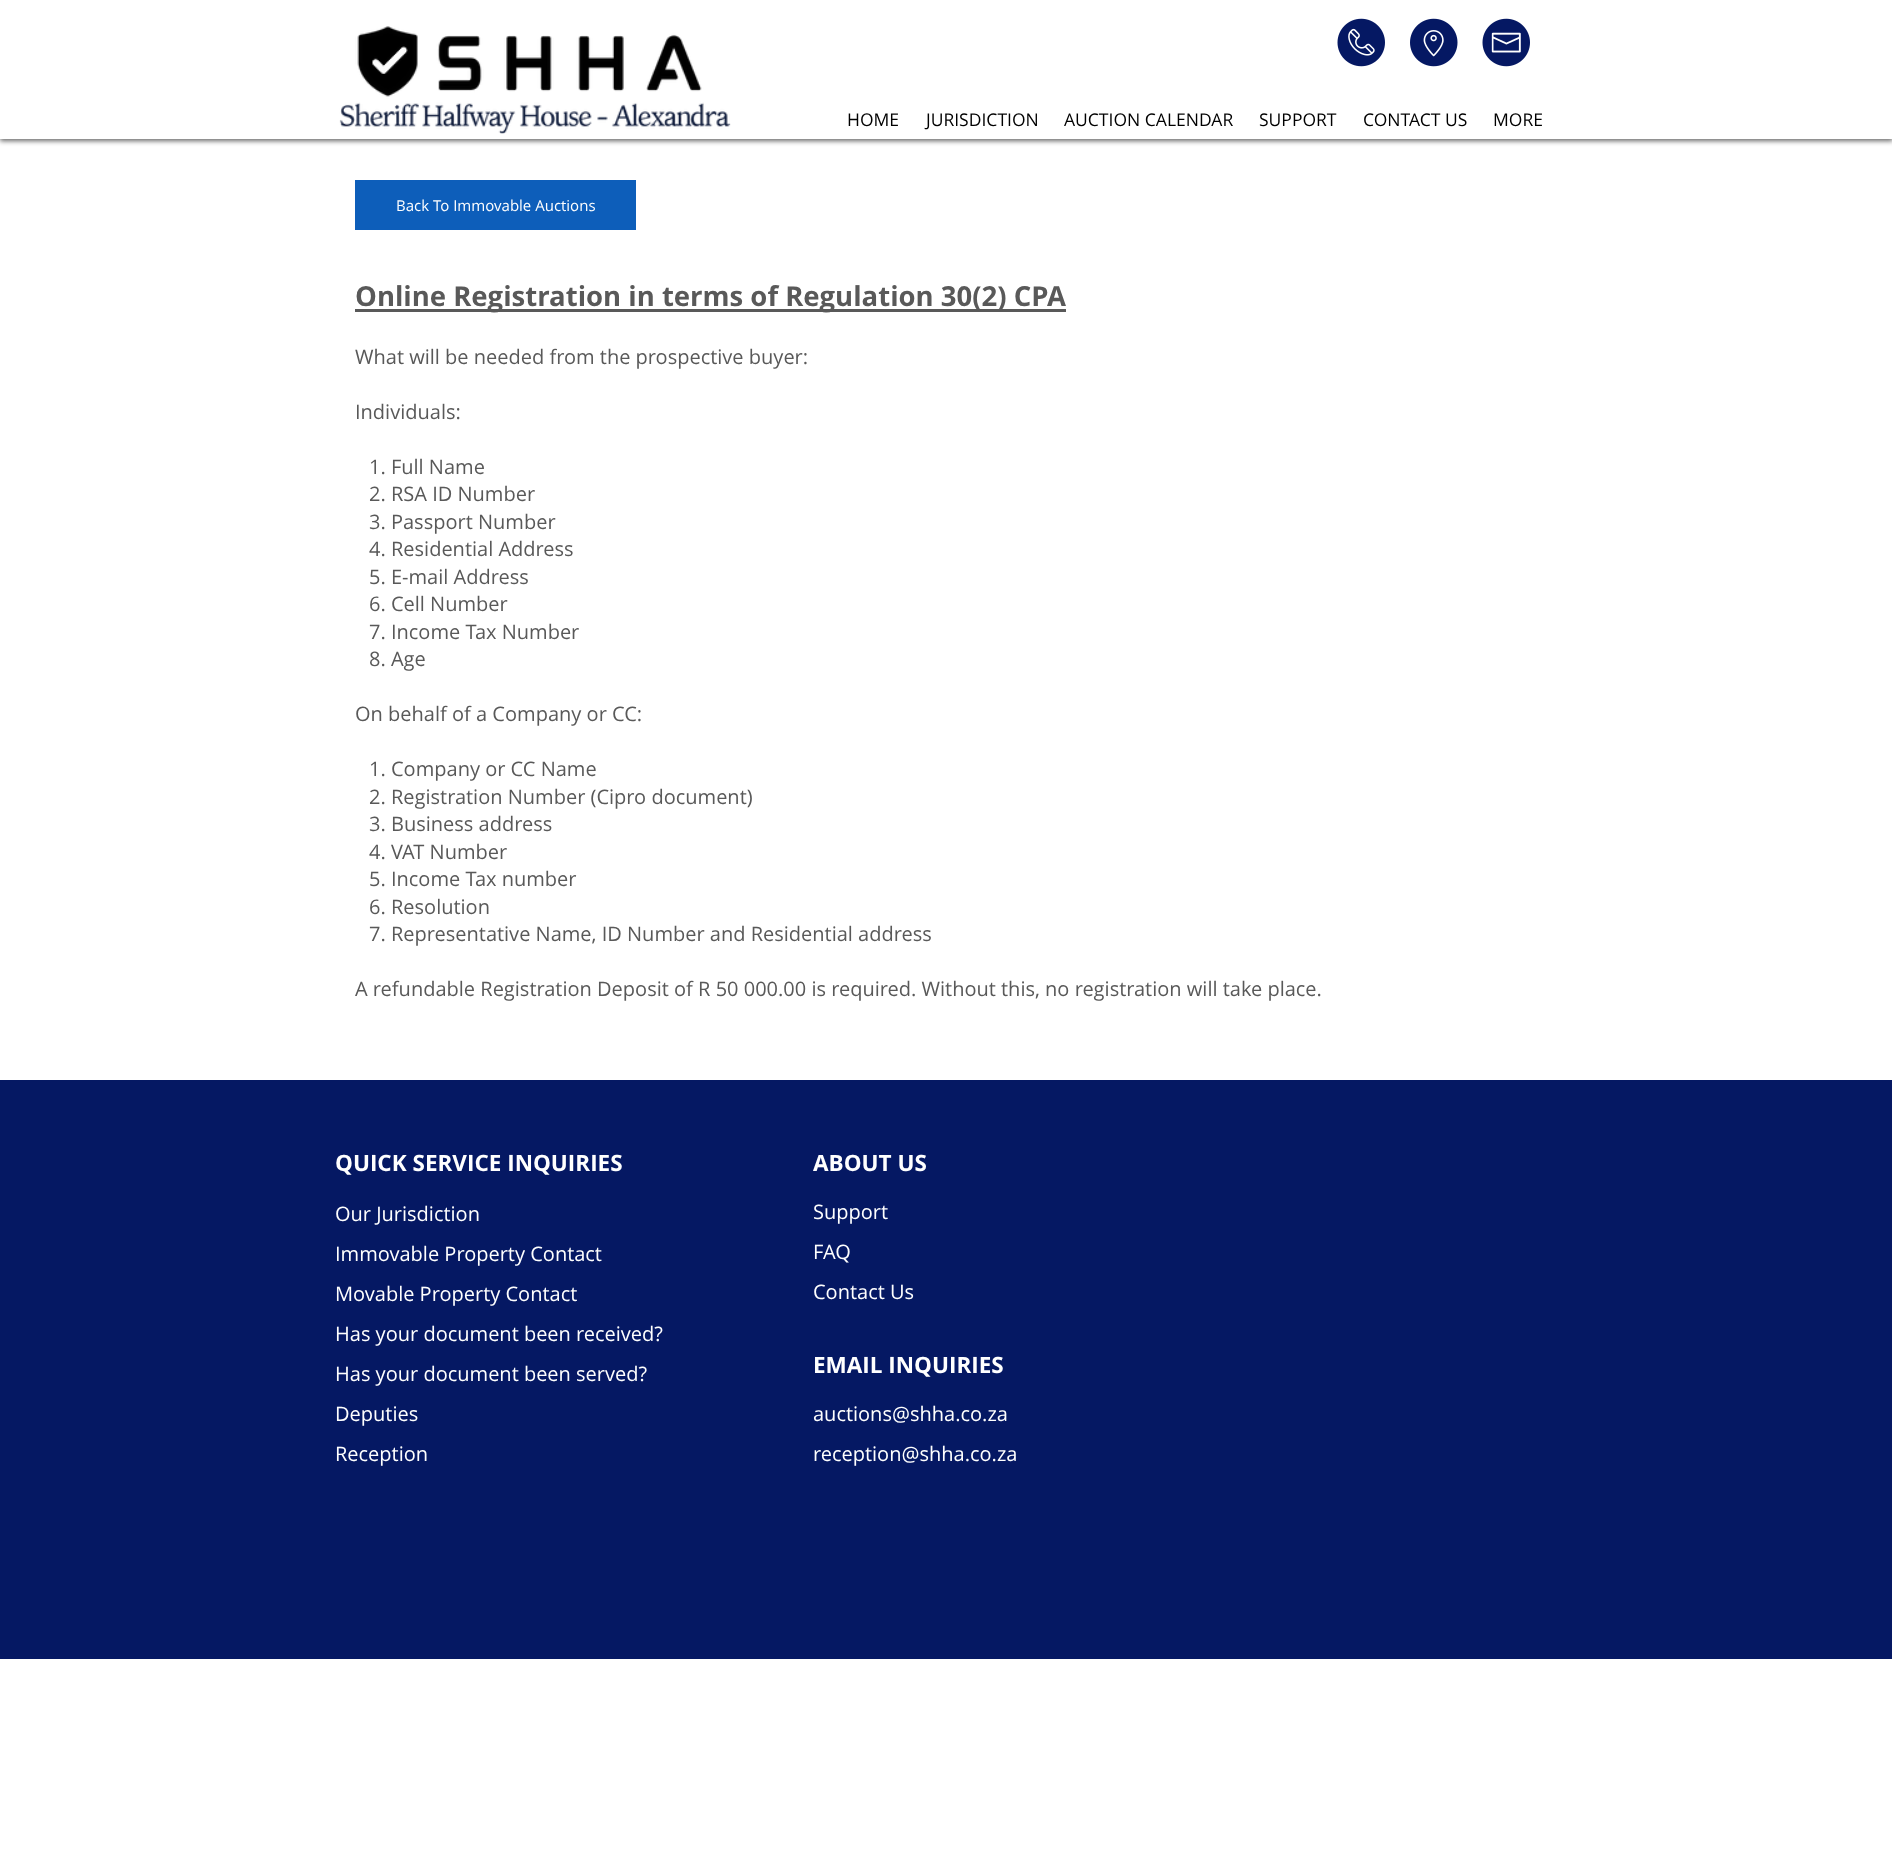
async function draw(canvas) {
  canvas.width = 1892;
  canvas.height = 1865;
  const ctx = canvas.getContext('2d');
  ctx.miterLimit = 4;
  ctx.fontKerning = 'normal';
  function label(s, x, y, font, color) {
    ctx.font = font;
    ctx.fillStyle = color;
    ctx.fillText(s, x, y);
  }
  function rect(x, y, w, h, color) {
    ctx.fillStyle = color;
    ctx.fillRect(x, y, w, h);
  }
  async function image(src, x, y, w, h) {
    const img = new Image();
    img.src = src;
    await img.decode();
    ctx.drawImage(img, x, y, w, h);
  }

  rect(0, 0, 1892, 1865, '#fff');
  ctx.fillStyle = '#00000099';
  ctx.filter = 'blur(2.5px)';
  ctx.beginPath();
  ctx.rect(0, 3, 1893, 138);
  ctx.fill();
  ctx.filter = 'none';
  rect(0, 0, 1892, 139, '#fff');
  await image('assets/img1.png', 339, 26, 392, 108);
  await image('assets/img2.png', 1337, 18, 48, 49);
  await image('assets/img3.png', 1410, 18, 48, 49);
  await image('assets/img4.png', 1482, 18, 48, 49);
  label('HOME', 847, 126, '17.5px Open Sans', '#000');
  label('JURISDICTION', 926, 126, '17.5px Open Sans', '#000');
  label('AUCTION CALENDAR', 1064, 126, '17.5px Open Sans', '#000');
  label('SUPPORT', 1259, 126, '17.5px Open Sans', '#000');
  label('CONTACT US', 1363, 126, '17.5px Open Sans', '#000');
  label('MORE', 1493, 126, '17.5px Open Sans', '#000');
  rect(355, 180, 281, 50, '#0d5eba');
  label('Back To Immovable Auctions', 396, 211, '15px Open Sans', '#fff');
  rect(355, 309, 711, 3, '#595959');
  label('Online Registration in terms of Regulation 30(2) CPA', 355, 306, 'bold 27.5px Open Sans', '#595959');
  label('What will be needed from the prospective buyer:', 355, 364, '20px Open Sans', '#595959');
  label('Individuals:', 355, 419, '20px Open Sans', '#595959');
  label('1. Full Name', 369, 474, '20px Open Sans', '#595959');
  label('2. RSA ID Number', 369, 501, '20px Open Sans', '#595959');
  label('3. Passport Number', 369, 529, '20px Open Sans', '#595959');
  label('4. Residential Address', 369, 556, '20px Open Sans', '#595959');
  label('5. E-mail Address', 369, 584, '20px Open Sans', '#595959');
  label('6. Cell Number', 369, 611, '20px Open Sans', '#595959');
  label('7. Income Tax Number', 369, 639, '20px Open Sans', '#595959');
  label('8. Age', 369, 666, '20px Open Sans', '#595959');
  label('On behalf of a Company or CC:', 355, 721, '20px Open Sans', '#595959');
  label('1. Company or CC Name', 369, 776, '20px Open Sans', '#595959');
  label('2. Registration Number (Cipro document)', 369, 804, '20px Open Sans', '#595959');
  label('3. Business address', 369, 831, '20px Open Sans', '#595959');
  label('4. VAT Number', 369, 859, '20px Open Sans', '#595959');
  label('5. Income Tax number', 369, 886, '20px Open Sans', '#595959');
  label('6. Resolution', 369, 914, '20px Open Sans', '#595959');
  label('7. Representative Name, ID Number and Residential address', 369, 941, '20px Open Sans', '#595959');
  label('A refundable Registration Deposit of R 50 000.00 is required. Without this, no registration will take place.', 355, 996, '20px Open Sans', '#595959');
  rect(0, 1080, 1892, 579, '#051863');
  label('QUICK SERVICE INQUIRIES', 335, 1171, 'bold 22.5px Open Sans', '#fff');
  label('Our Jurisdiction', 335, 1221, '20px Open Sans', '#fff');
  label('Immovable Property Contact', 335, 1261, '20px Open Sans', '#fff');
  label('Movable Property Contact', 335, 1301, '20px Open Sans', '#fff');
  label('Has your document been received?', 335, 1341, '20px Open Sans', '#fff');
  label('Has your document been served?', 335, 1381, '20px Open Sans', '#fff');
  label('Deputies', 335, 1421, '20px Open Sans', '#fff');
  label('Reception', 335, 1461, '20px Open Sans', '#fff');
  label('ABOUT US', 813, 1171, 'bold 22.5px Open Sans', '#fff');
  label('Support', 813, 1219, '20px Open Sans', '#fff');
  label('FAQ', 813, 1259, '20px Open Sans', '#fff');
  label('Contact Us', 813, 1299, '20px Open Sans', '#fff');
  label('EMAIL INQUIRIES', 813, 1373, 'bold 22.5px Open Sans', '#fff');
  label('auctions@shha.co.za', 813, 1421, '20px Open Sans', '#fff');
  label('reception@shha.co.za', 813, 1461, '20px Open Sans', '#fff');
}

draw(document.querySelector('canvas'));
